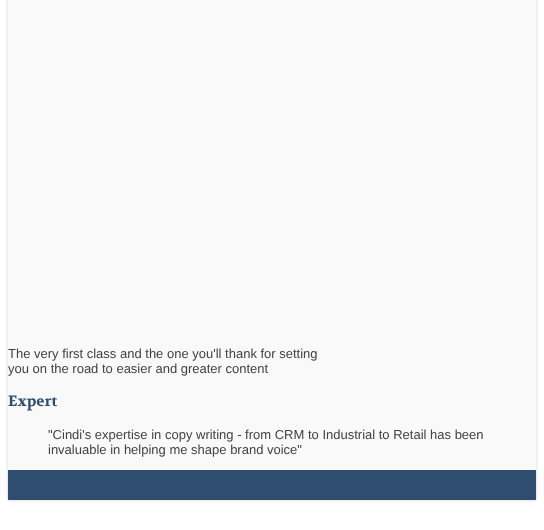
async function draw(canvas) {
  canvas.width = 544;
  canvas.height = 530;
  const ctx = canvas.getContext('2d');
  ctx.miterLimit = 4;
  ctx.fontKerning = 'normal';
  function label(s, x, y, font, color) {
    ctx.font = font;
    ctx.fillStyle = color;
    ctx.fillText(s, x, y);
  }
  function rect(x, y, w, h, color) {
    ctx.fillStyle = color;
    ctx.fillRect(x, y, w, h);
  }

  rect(0, 0, 544, 530, '#fff');
  ctx.fillStyle = '#00000033';
  ctx.filter = 'blur(1.5px)';
  ctx.beginPath();
  ctx.rect(8, -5, 528, 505);
  ctx.fill();
  ctx.filter = 'none';
  rect(8, 0, 528, 470, '#f9f9f9');
  label('The very first class and the one you\'ll thank for setting', 8, 358, '13px Liberation Sans', '#424242');
  label('you on the road to easier and greater content', 8, 373, '13px Liberation Sans', '#424242');
  label('Expert', 8, 406, 'bold 15px Volkhov', '#2f4e6f');
  label('"Cindi\'s expertise in copy writing - from CRM to Industrial to Retail has been', 48, 439, '13px Liberation Sans', '#424242');
  label('invaluable in helping me shape brand voice"', 48, 454, '13px Liberation Sans', '#424242');
  rect(8, 470, 528, 30, '#2f4e6f');
}

draw(document.querySelector('canvas'));
